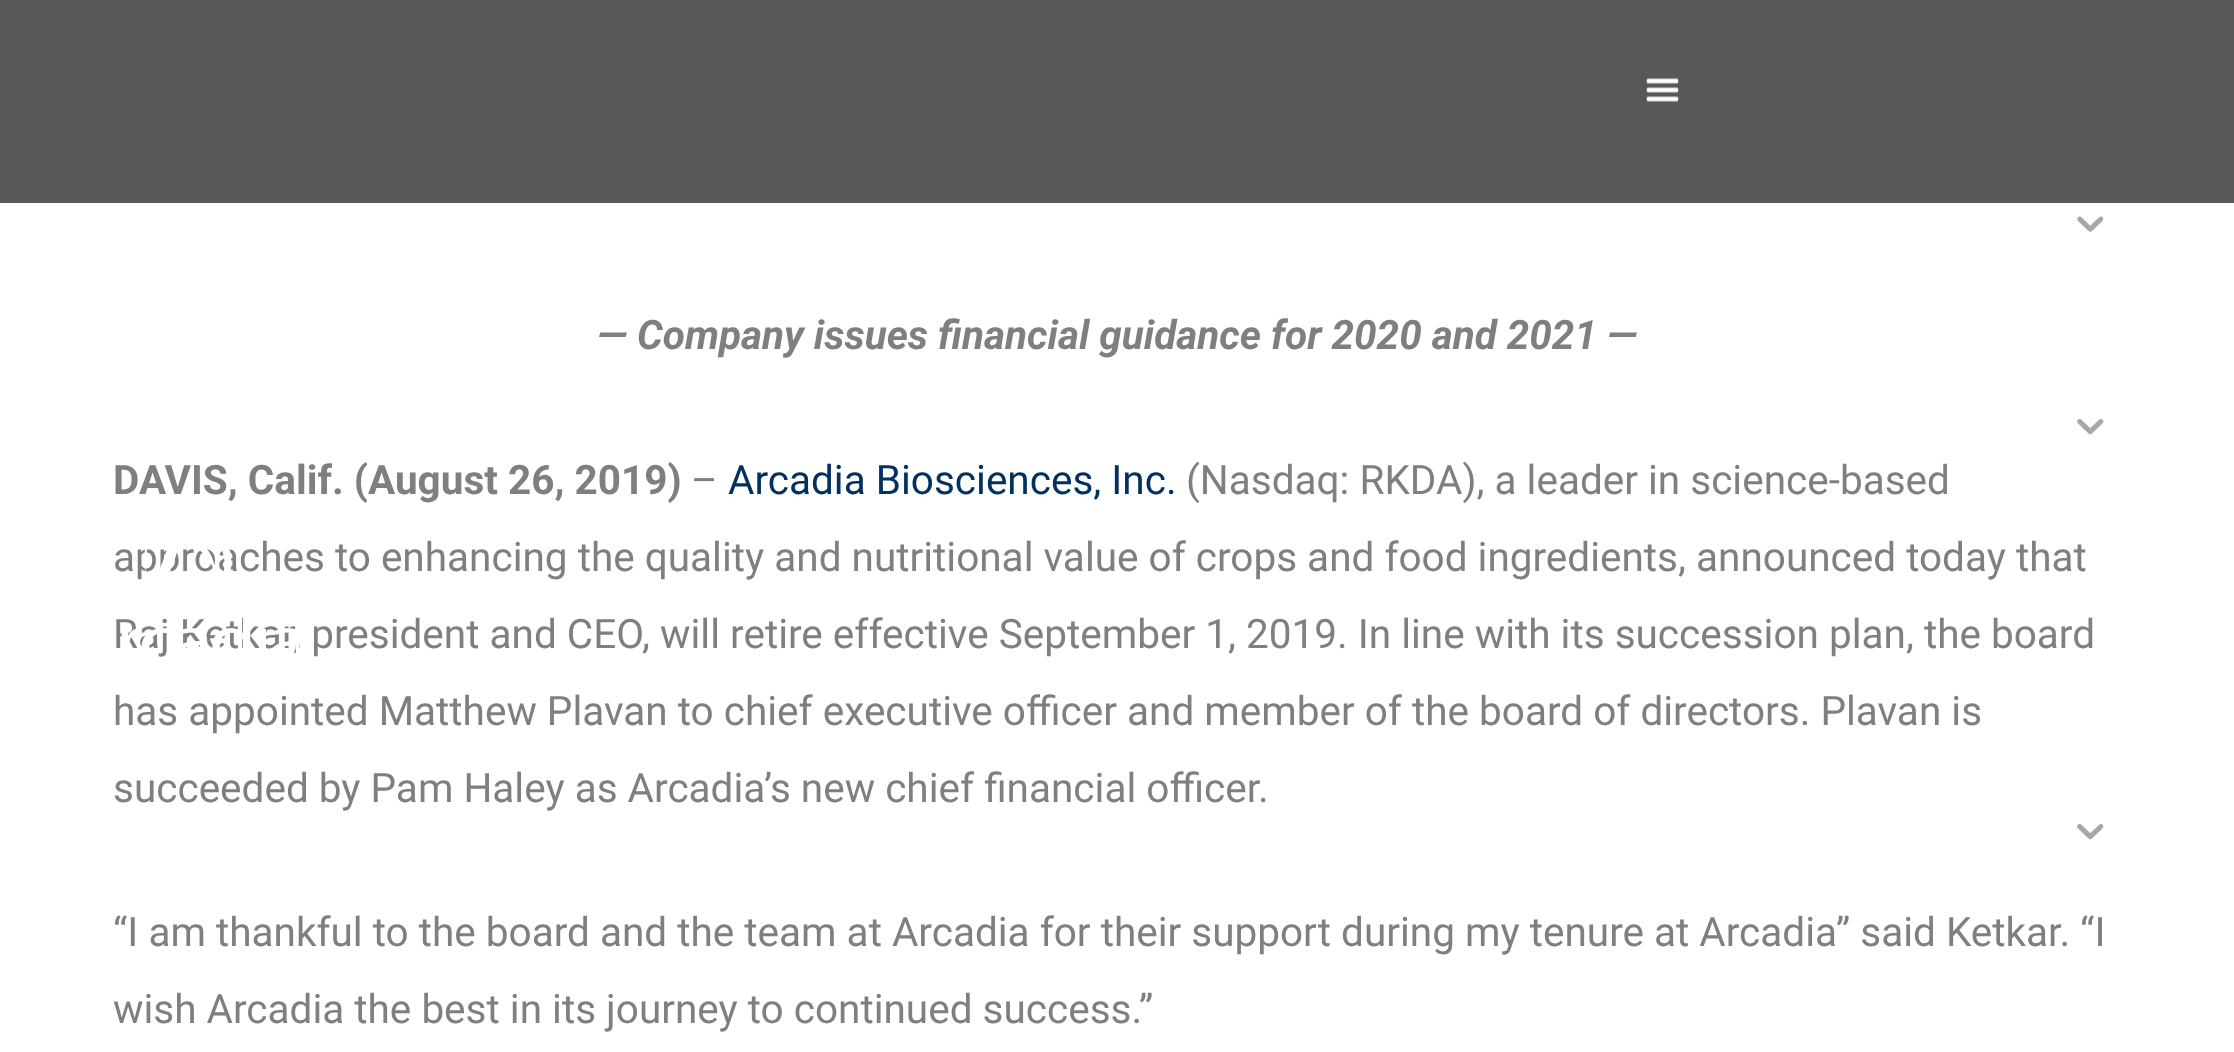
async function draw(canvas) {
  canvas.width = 2234;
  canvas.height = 1052;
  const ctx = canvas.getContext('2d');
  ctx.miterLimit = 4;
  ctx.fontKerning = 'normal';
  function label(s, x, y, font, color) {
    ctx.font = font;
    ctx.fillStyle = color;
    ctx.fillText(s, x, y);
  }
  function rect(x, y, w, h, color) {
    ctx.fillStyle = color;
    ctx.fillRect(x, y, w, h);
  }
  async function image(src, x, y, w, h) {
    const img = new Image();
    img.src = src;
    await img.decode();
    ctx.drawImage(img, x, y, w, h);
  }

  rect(0, 0, 2234, 1052, '#fff');
  rect(0, 0, 2234, 203, '#464646e6');
  label('approaches to enhancing the quality and nutritional value of crops and food ingredients, announced today that', 113, 571, '40.5px Roboto', '#7f7f7f');
  label('Raj Ketkar, president and CEO, will retire effective September 1, 2019. In line with its succession plan, the board', 113, 648, '40.5px Roboto', '#7f7f7f');
  await image('assets/img1.png', 121, 549, 178, 105);
  await image('assets/img2.png', 1646, 78, 33, 24);
  await image('assets/img3.png', 2077, 216, 27, 16);
  await image('assets/img4.png', 2077, 419, 27, 16);
  await image('assets/img4.png', 2077, 824, 27, 16);
  label('— Company issues financial guidance for 2020 and 2021 —', 597, 349, 'italic bold 40.5px Roboto', '#7f7f7f');
  label('DAVIS, Calif. (August 26, 2019)', 113, 494, 'bold 40.5px Roboto', '#7f7f7f');
  label('–', 691, 494, '40.5px Roboto', '#7f7f7f');
  label('Arcadia Biosciences, Inc.', 728, 494, '40.5px Roboto', '#023160');
  label('(Nasdaq: RKDA), a leader in science-based', 1186, 494, '40.5px Roboto', '#7f7f7f');
  label('has appointed Matthew Plavan to chief executive officer and member of the board of directors. Plavan is', 113, 725, '40.5px Roboto', '#7f7f7f');
  label('succeeded by Pam Haley as Arcadia’s new chief financial officer.', 113, 802, '40.5px Roboto', '#7f7f7f');
  label('“I am thankful to the board and the team at Arcadia for their support during my tenure at Arcadia” said Ketkar. “I', 113, 946, '40.5px Roboto', '#7f7f7f');
  label('wish Arcadia the best in its journey to continued success.”', 113, 1023, '40.5px Roboto', '#7f7f7f');
}

draw(document.querySelector('canvas'));
